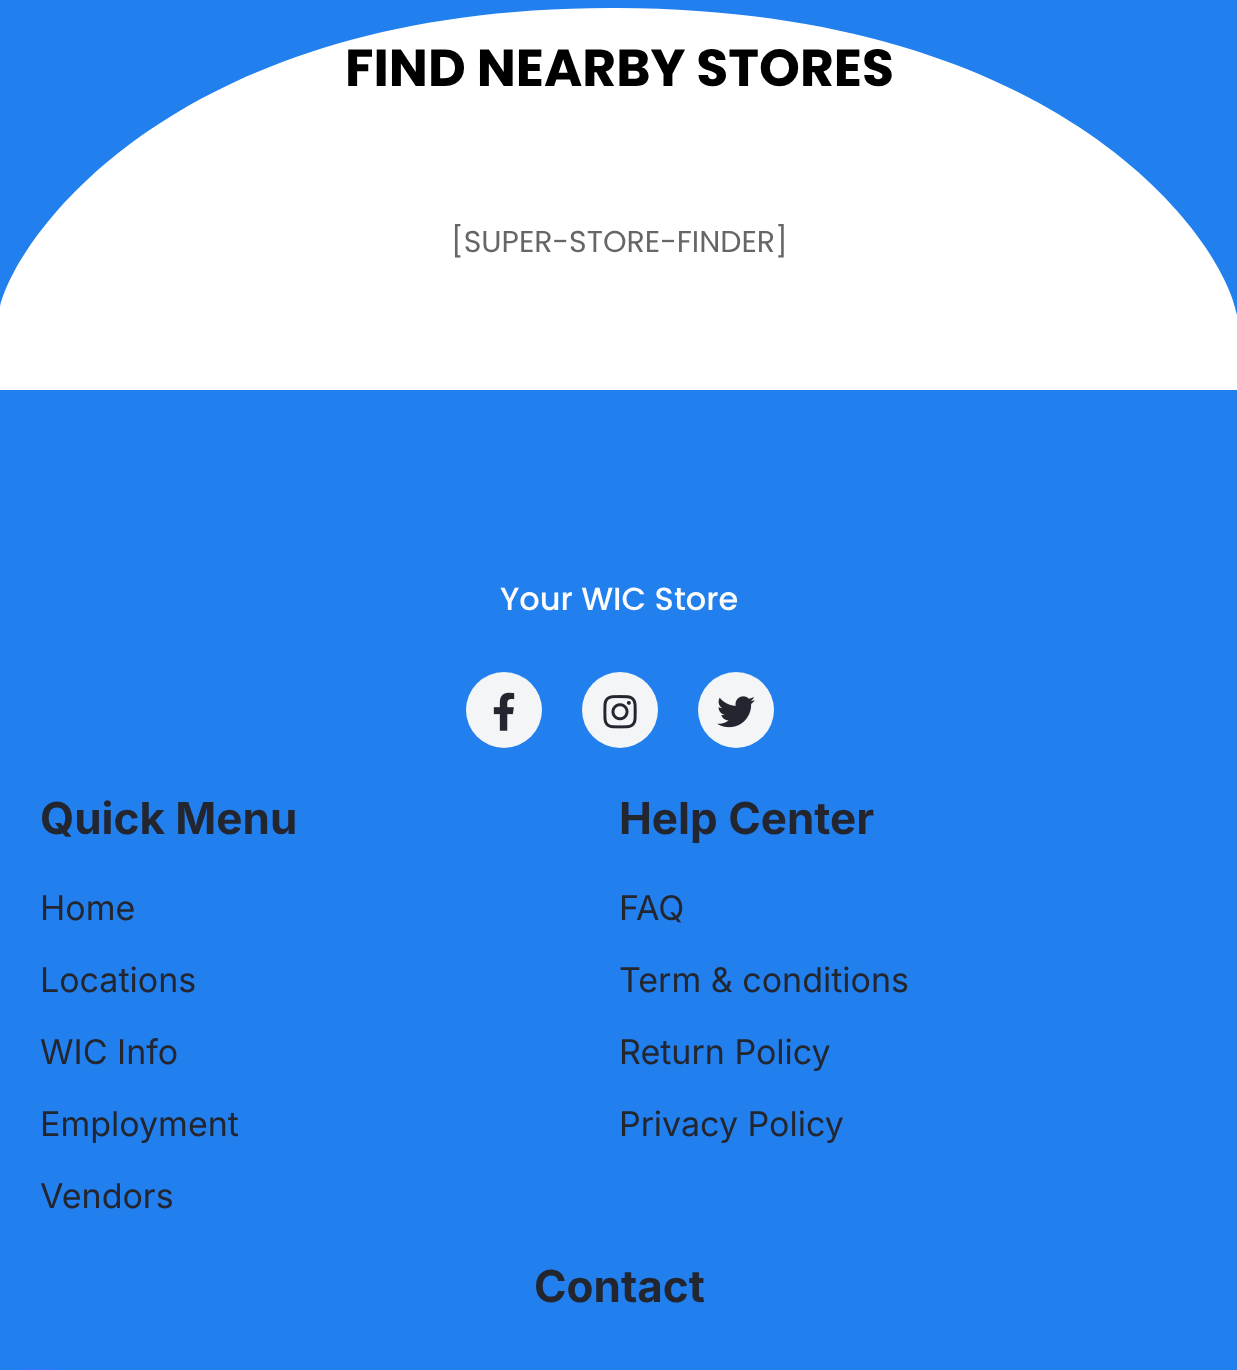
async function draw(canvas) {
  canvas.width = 1237;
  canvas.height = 1370;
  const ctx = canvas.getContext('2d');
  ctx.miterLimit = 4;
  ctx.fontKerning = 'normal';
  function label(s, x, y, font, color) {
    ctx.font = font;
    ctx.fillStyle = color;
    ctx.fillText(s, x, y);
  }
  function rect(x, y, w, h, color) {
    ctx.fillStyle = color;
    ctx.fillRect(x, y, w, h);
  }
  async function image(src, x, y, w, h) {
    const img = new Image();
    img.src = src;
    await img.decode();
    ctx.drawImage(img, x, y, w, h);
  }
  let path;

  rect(0, 0, 1237, 1370, '#fff');
  label('FIND NEARBY STORES', 345, 86, 'bold 52px Poppins', '#000');
  label('[SUPER-STORE-FINDER]', 451, 252, '30px Poppins', '#666');
  ctx.fillStyle = '#227fee';
  path = new Path2D('M618 8C1081 10 1237 259 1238 324V-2H-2V321C-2 261 155 5 618 8Z');
  ctx.fill(path);
  rect(0, 390, 1237, 980, '#227fee');
  label('Your WIC Store', 500, 610, '500 32px Poppins', '#fcfcfc');
  ctx.fillStyle = '#f4f5f6';
  ctx.beginPath();
  ctx.arc(504, 710, 38, 0, 2 * Math.PI);
  ctx.fill();
  await image('assets/img1.png', 493, 692, 22, 39);
  ctx.beginPath();
  ctx.arc(620, 710, 38, 0, 2 * Math.PI);
  ctx.fill();
  await image('assets/img2.png', 603, 695, 34, 34);
  ctx.beginPath();
  ctx.arc(736, 710, 38, 0, 2 * Math.PI);
  ctx.fill();
  await image('assets/img3.png', 717, 696, 38, 32);
  label('Quick Menu', 40, 834, 'bold 44px Inter', '#23262f');
  label('Home', 40, 920, '34px Inter', '#23262f');
  label('Locations', 40, 992, '34px Inter', '#23262f');
  label('WIC Info', 40, 1064, '34px Inter', '#23262f');
  label('Employment', 40, 1136, '34px Inter', '#23262f');
  label('Vendors', 40, 1208, '34px Inter', '#23262f');
  label('Help Center', 619, 834, 'bold 44px Inter', '#23262f');
  label('FAQ', 619, 920, '34px Inter', '#23262f');
  label('Term & conditions', 619, 992, '34px Inter', '#23262f');
  label('Return Policy', 619, 1064, '34px Inter', '#23262f');
  label('Privacy Policy', 619, 1136, '34px Inter', '#23262f');
  label('Contact', 534, 1302, 'bold 44px Inter', '#23262f');
  await image('assets/img4.png', 21, 1369, 34, 1);
}

draw(document.querySelector('canvas'));
